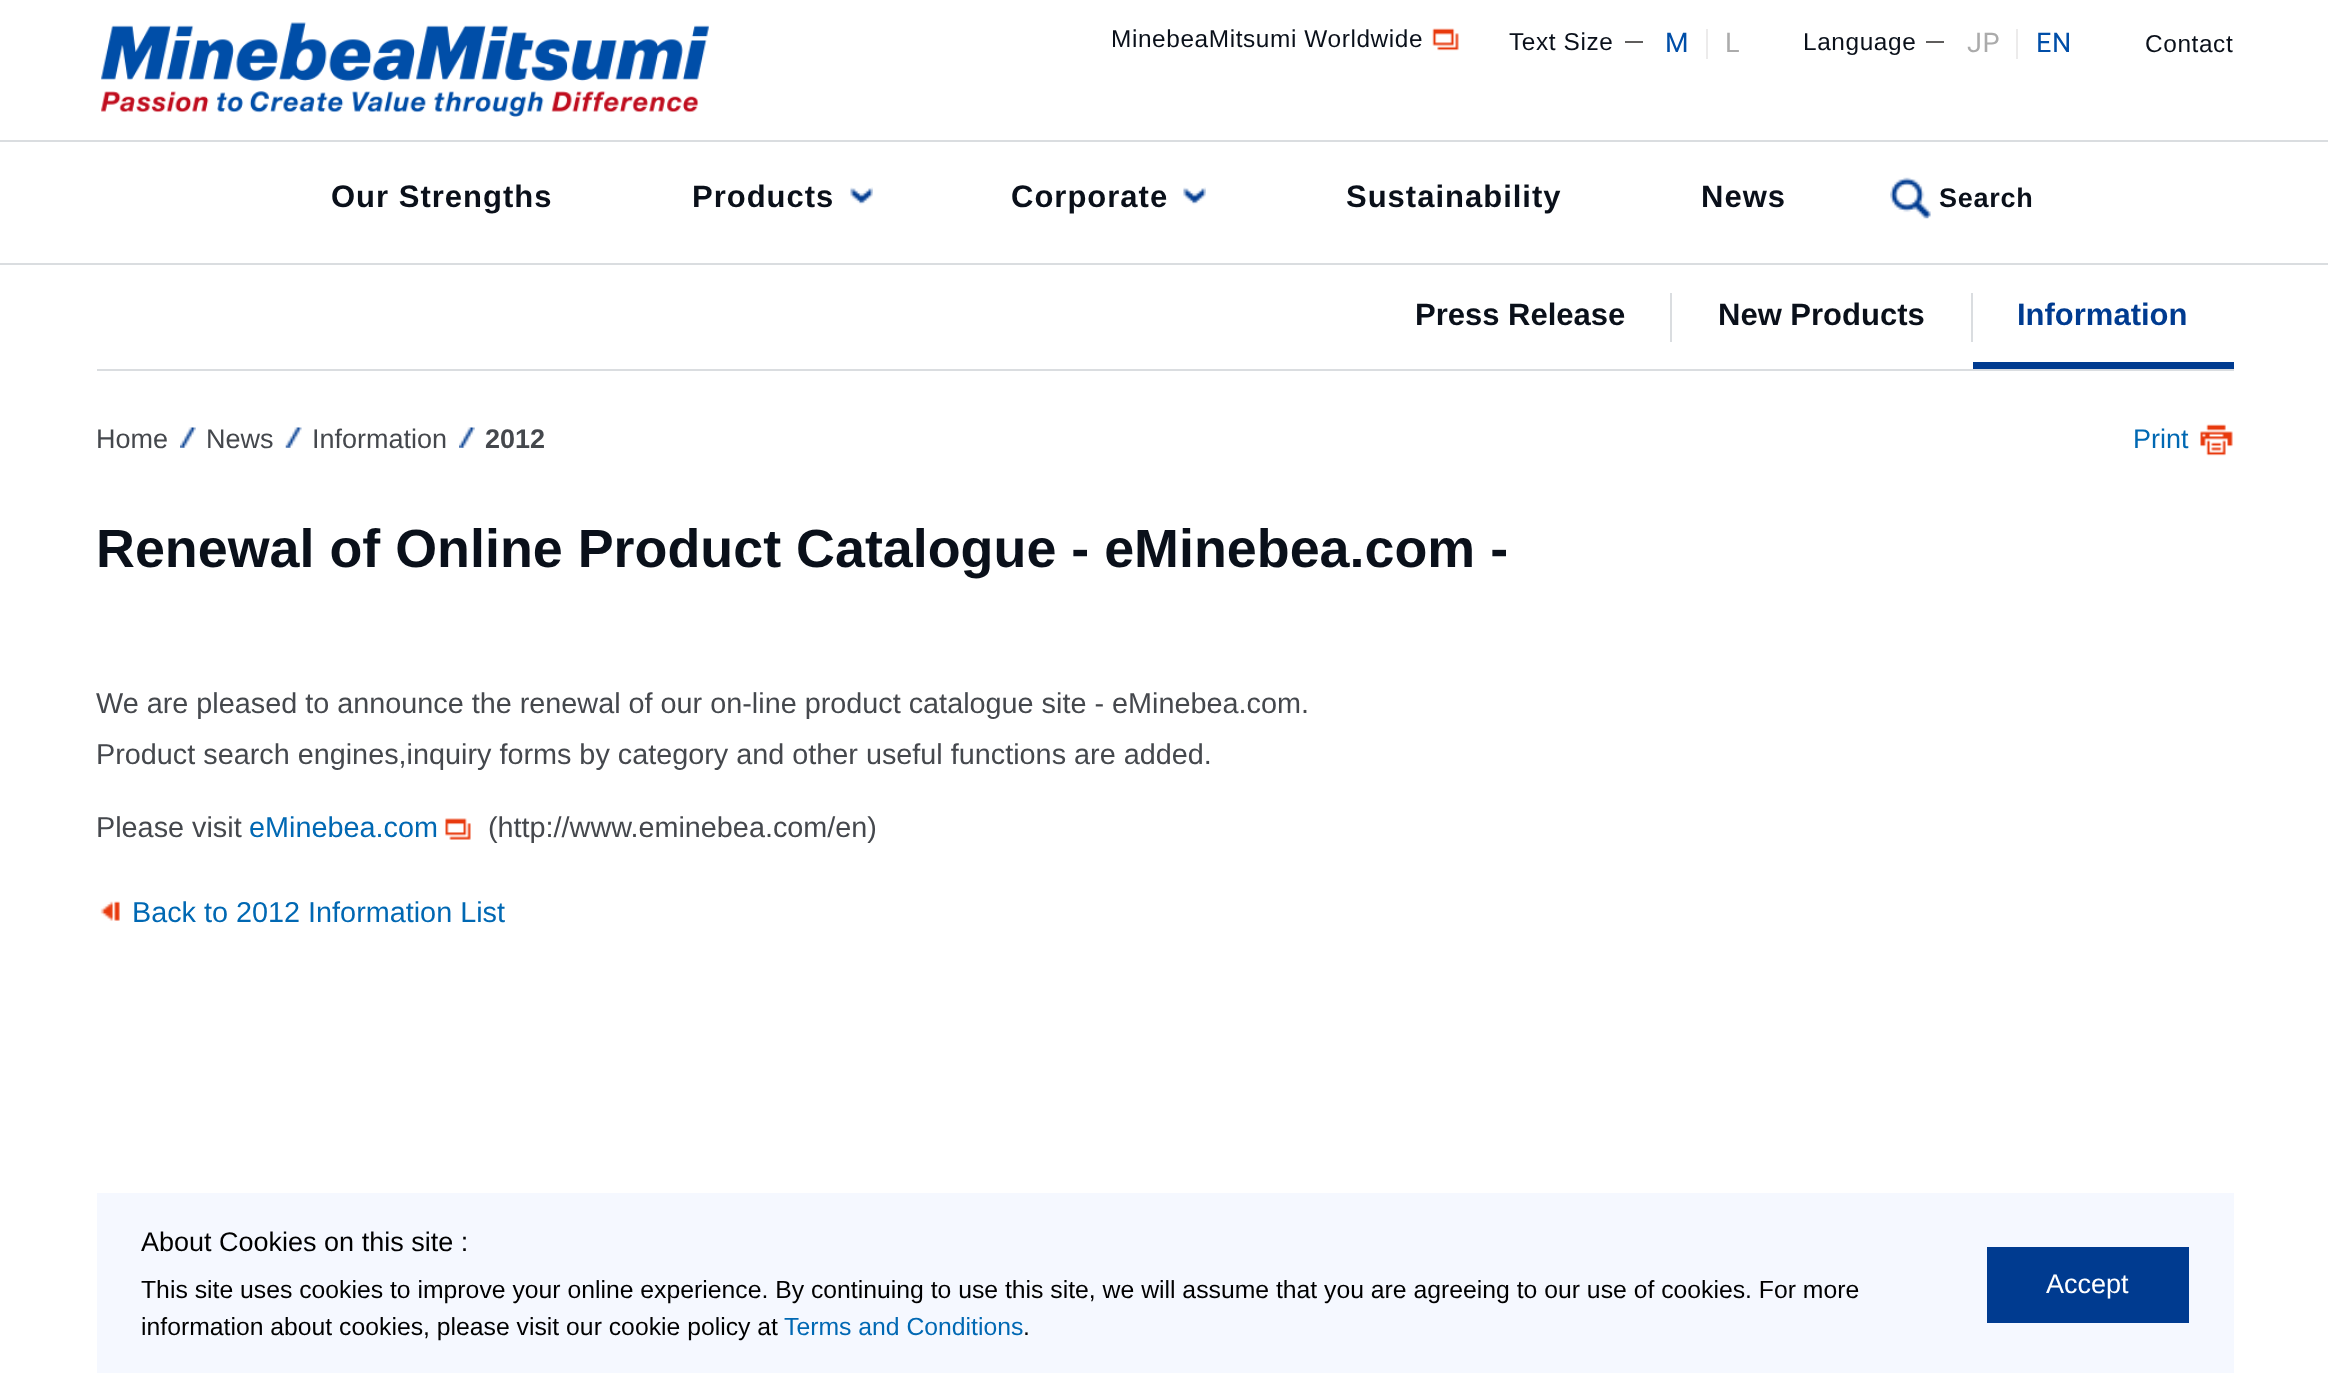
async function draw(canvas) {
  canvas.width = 2328;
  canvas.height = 1373;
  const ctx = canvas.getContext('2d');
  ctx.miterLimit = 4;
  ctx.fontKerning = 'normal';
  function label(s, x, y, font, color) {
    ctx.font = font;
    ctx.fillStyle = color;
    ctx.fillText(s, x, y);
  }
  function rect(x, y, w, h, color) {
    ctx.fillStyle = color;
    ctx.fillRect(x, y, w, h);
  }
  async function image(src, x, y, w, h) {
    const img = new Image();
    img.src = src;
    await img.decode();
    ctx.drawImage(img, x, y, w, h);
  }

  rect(0, 0, 2328, 1373, '#fff');
  await image('assets/img1.png', 101, 22, 608, 95);
  ctx.letterSpacing = '0.6px';
  label('MinebeaMitsumi Worldwide', 1111, 47, '24.4px Liberation Sans', '#0a101a');
  await image('assets/img2.png', 1432, 28, 27, 23);
  label('Text Size', 1509, 50, '24.4px Liberation Sans', '#0a101a');
  rect(1625, 41, 18, 2, '#5f5d5c');
  label('M', 1665, 52, '27px Roboto', '#004ea8');
  rect(1706, 29, 2, 30, '#ecebeb');
  label('L', 1725, 52, '27px Roboto', '#ababab');
  label('Language', 1803, 50, '24.4px Liberation Sans', '#0a101a');
  rect(1926, 41, 18, 2, '#5f5d5c');
  label('JP', 1967, 52, '27px Roboto', '#ababab');
  rect(2016, 29, 2, 30, '#ecebeb');
  label('EN', 2036, 52, '27px Roboto', '#004ea8');
  label('Contact', 2145, 52, '24.4px Liberation Sans', '#0a101a');
  rect(0, 140, 2328, 2, '#dadde0');
  rect(0, 263, 2328, 2, '#dadde0');
  ctx.letterSpacing = '1px';
  label('Our Strengths', 331, 207, 'bold 31px Liberation Sans', '#0a101a');
  label('Products', 692, 207, 'bold 31px Liberation Sans', '#0a101a');
  await image('assets/img3.png', 850, 187, 23, 18);
  label('Corporate', 1011, 207, 'bold 31px Liberation Sans', '#0a101a');
  await image('assets/img3.png', 1183, 187, 23, 18);
  label('Sustainability', 1346, 207, 'bold 31px Liberation Sans', '#0a101a');
  label('News', 1701, 207, 'bold 31px Liberation Sans', '#0a101a');
  await image('assets/img4.png', 1890, 177, 41, 42);
  ctx.letterSpacing = '0.75px';
  label('Search', 1939, 207, 'bold 27px Liberation Sans', '#0a101a');
  rect(97, 369, 2137, 2, '#dadde0');
  ctx.letterSpacing = '0px';
  label('Press Release', 1415, 325, 'bold 31px Liberation Sans', '#0a101a');
  rect(1670, 293, 2, 49, '#dadde0');
  label('New Products', 1718, 325, 'bold 31px Liberation Sans', '#0a101a');
  rect(1973, 362, 261, 7, '#003b90');
  rect(1971, 293, 2, 49, '#dadde0');
  label('Information', 2017, 325, 'bold 31px Liberation Sans', '#003b90');
  label('Home', 96, 448, '27px Liberation Sans', '#45484d');
  await image('assets/img5.png', 180, 427, 16, 21);
  label('News', 206, 448, '27px Liberation Sans', '#45484d');
  await image('assets/img6.png', 285, 427, 17, 21);
  label('Information', 312, 448, '27px Liberation Sans', '#45484d');
  await image('assets/img5.png', 459, 427, 16, 21);
  label('2012', 485, 448, 'bold 27px Liberation Sans', '#45484d');
  await image('assets/img7.png', 2200, 424, 33, 32);
  label('Print', 2133, 448, '27px Liberation Sans', '#0068b3');
  label('Renewal of Online Product Catalogue - eMinebea.com -', 96, 567, 'bold 53.85px Liberation Sans', '#0a101a');
  label('We are pleased to announce the renewal of our on-line product catalogue site - eMinebea.com.', 96, 713, '28.8px Liberation Sans', '#45484d');
  label('Product search engines,inquiry forms by category and other useful functions are added.', 96, 764, '28.8px Liberation Sans', '#45484d');
  label('Please visit', 96, 837, '28.8px Liberation Sans', '#45484d');
  label('eMinebea.com', 249, 837, '28.8px Liberation Sans', '#0068b3');
  await image('assets/img8.png', 445, 818, 26, 22);
  label('(http://www.eminebea.com/en)', 488, 837, '28.8px Liberation Sans', '#45484d');
  await image('assets/img9.png', 100, 901, 20, 20);
  label('Back to 2012 Information List', 132, 922, '28.8px Liberation Sans', '#0068b3');
  rect(97, 1193, 2137, 180, '#f5f8ff');
  label('About Cookies on this site :', 141, 1251, '27px Liberation Sans', '#000');
  label('This site uses cookies to improve your online experience. By continuing to use this site, we will assume that you are agreeing to our use of cookies. For more', 141, 1298, '24.75px Liberation Sans', '#000');
  label('information about cookies, please visit our cookie policy at', 141, 1335, '24.75px Liberation Sans', '#000');
  label('Terms and Conditions', 784, 1335, '24.75px Liberation Sans', '#0068b3');
  label('.', 1023, 1335, '24.75px Liberation Sans', '#000');
  rect(1987, 1247, 202, 76, '#003b90');
  label('Accept', 2046, 1293, '27px Liberation Sans', '#fff');
}

draw(document.querySelector('canvas'));
